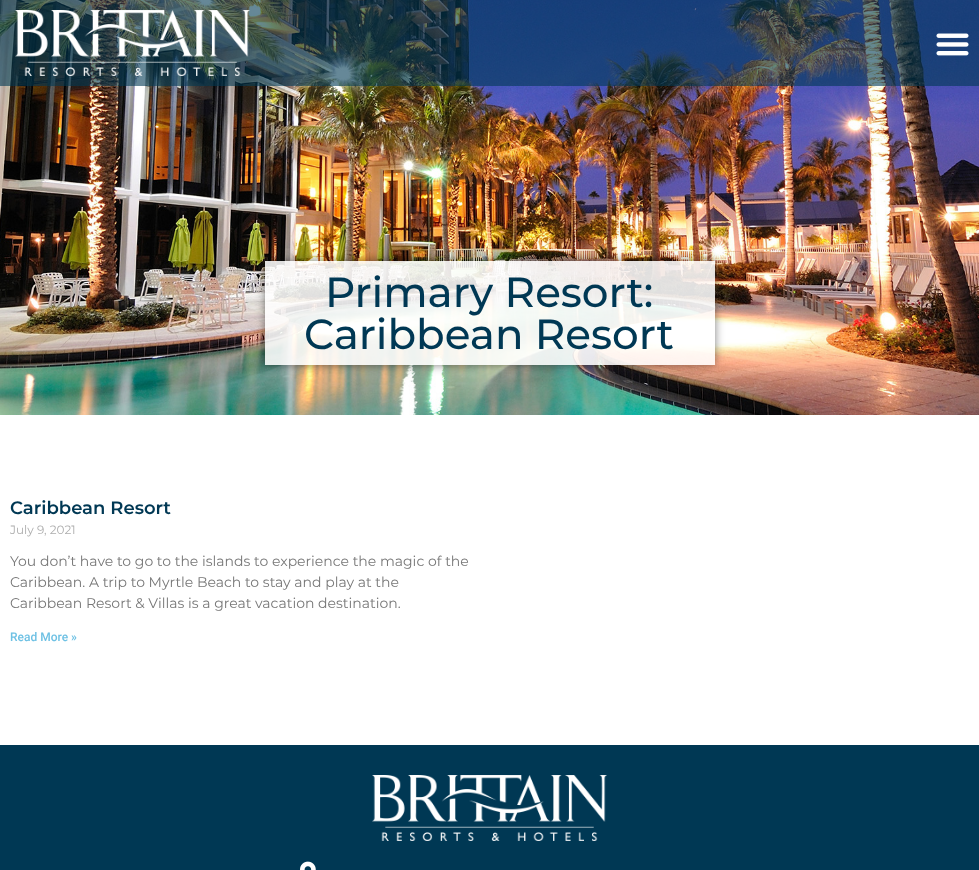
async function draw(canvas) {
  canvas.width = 979;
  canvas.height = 870;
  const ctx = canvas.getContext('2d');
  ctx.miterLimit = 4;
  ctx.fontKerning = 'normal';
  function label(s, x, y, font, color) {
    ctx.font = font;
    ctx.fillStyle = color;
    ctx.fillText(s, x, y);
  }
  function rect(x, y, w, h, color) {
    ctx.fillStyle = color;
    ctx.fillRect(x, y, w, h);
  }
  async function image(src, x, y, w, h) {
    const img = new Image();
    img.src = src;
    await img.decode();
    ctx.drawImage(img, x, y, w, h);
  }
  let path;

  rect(0, 0, 979, 870, '#fff');
  await image('assets/img3.png', 0, 0, 979, 415);
  rect(0, 0, 979, 86, '#00385499');
  await image('assets/img1.png', 15, 10, 235, 66);
  await image('assets/img2.png', 936, 33, 33, 23);
  ctx.save();
  path = new Path2D('M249 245H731V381H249ZM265 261H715V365H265Z');
  ctx.clip(path, 'evenodd');
  ctx.fillStyle = '#00000080';
  ctx.filter = 'blur(5px)';
  ctx.beginPath();
  ctx.rect(265, 261, 450, 104);
  ctx.fill();
  ctx.filter = 'none';
  ctx.restore();
  rect(265, 261, 450, 104, '#ffffffde');
  label('Primary Resort:', 325, 307, '500 42px Montserrat', '#003854');
  label('Caribbean Resort', 304, 349, '500 42px Montserrat', '#003854');
  label('Caribbean Resort', 10, 514, '600 18px Montserrat', '#003854');
  label('July 9, 2021', 10, 534, '12px Montserrat', '#adadad');
  label('You don’t have to go to the islands to experience the magic of the', 10, 566, '14px Montserrat', '#777');
  label('Caribbean. A trip to Myrtle Beach to stay and play at the', 10, 587, '14px Montserrat', '#777');
  label('Caribbean Resort & Villas is a great vacation destination.', 10, 608, '14px Montserrat', '#777');
  label('Read More »', 10, 641, '500 12px Roboto', '#6ec1e4');
  rect(0, 745, 979, 125, '#003854');
  await image('assets/img4.png', 372, 775, 235, 66);
  await image('assets/img5.png', 300, 861, 16, 9);
}

draw(document.querySelector('canvas'));
